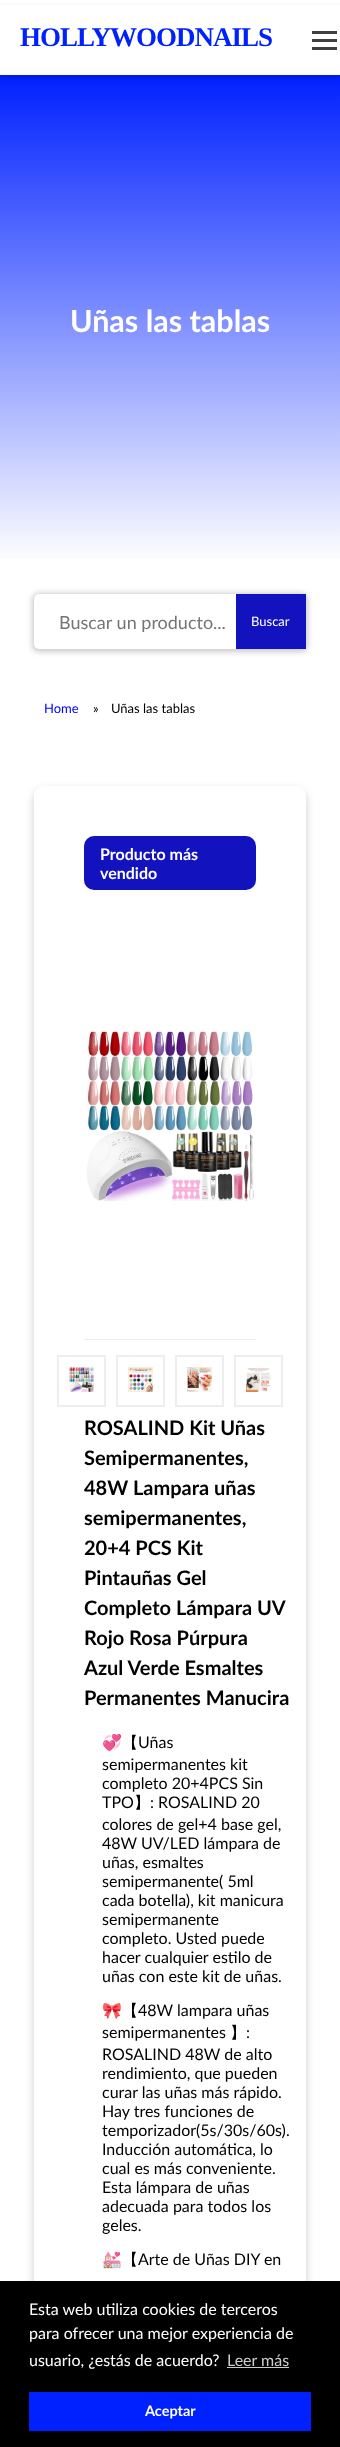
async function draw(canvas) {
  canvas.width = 340;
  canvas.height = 2447;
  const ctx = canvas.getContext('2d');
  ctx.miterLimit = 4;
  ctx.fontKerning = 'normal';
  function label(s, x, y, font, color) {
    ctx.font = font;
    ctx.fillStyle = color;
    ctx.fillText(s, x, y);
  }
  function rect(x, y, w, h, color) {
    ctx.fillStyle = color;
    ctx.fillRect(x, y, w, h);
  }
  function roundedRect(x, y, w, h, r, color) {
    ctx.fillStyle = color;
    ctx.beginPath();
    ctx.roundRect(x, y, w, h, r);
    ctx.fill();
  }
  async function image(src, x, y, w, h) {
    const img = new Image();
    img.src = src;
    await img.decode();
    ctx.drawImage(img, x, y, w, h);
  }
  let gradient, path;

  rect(0, 0, 340, 2447, '#fff');
  gradient = ctx.createLinearGradient(170, 75, 170, 564);
  gradient.addColorStop(0, '#0021ff');
  gradient.addColorStop(1, '#fff');
  ctx.fillStyle = gradient;
  ctx.fillRect(0, 75, 340, 484);
  ctx.save();
  path = new Path2D('M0 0H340V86H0ZM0 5H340V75H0Z');
  ctx.clip(path, 'evenodd');
  ctx.fillStyle = '#00000029';
  ctx.filter = 'blur(2.5px)';
  ctx.beginPath();
  ctx.rect(0, 7, 340, 70);
  ctx.fill();
  ctx.filter = 'none';
  ctx.restore();
  ctx.letterSpacing = '-1px';
  label('HOLLYWOODNAILS', 20, 46, 'bold 27px Liberation Serif', '#0021ff');
  rect(312, 31, 25, 3, '#3f3f3f');
  rect(312, 39, 25, 3, '#3f3f3f');
  rect(312, 47, 25, 3, '#3f3f3f');
  ctx.letterSpacing = '0px';
  label('Uñas las tablas', 70, 332, 'bold 30.5px Lato', '#fff');
  ctx.fillStyle = '#0000001f';
  ctx.filter = 'blur(2.5px)';
  ctx.beginPath();
  ctx.roundRect(31, 592, 278, 61, 8);
  ctx.fill();
  ctx.filter = 'none';
  ctx.fillStyle = '#0000001a';
  ctx.filter = 'blur(2.5px)';
  ctx.beginPath();
  ctx.roundRect(34, 595, 272, 55, 5);
  ctx.fill();
  ctx.filter = 'none';
  roundedRect(34, 594, 272, 55, 5, '#fff');
  label('Buscar un producto...', 59, 629, '18px Lato', '#757575');
  rect(236, 594, 70, 55, '#1213bf');
  label('Buscar', 251, 626, '13px Lato', '#fff');
  label('Home', 44, 713, '13px Lato', '#00f');
  label('»', 93, 713, '13px Lato', '#000');
  label('Uñas las tablas', 111, 713, '13px Lato', '#000');
  ctx.save();
  path = new Path2D('M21 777H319V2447H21ZM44 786H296C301.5 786 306 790.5 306 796V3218C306 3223.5 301.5 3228 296 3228H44C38.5 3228 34 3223.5 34 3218V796C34 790.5 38.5 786 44 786Z');
  ctx.clip(path, 'evenodd');
  ctx.fillStyle = '#00000033';
  ctx.filter = 'blur(4px)';
  ctx.beginPath();
  ctx.roundRect(34, 790, 272, 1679, 10);
  ctx.fill();
  ctx.filter = 'none';
  ctx.restore();
  roundedRect(84, 836, 172, 54, 10, '#1213bf');
  label('Producto más', 100, 860, 'bold 16px Lato', '#fff');
  label('vendido', 100, 879, 'bold 16px Lato', '#fff');
  rect(84, 1339, 172, 1, '#eee');
  await image('assets/img1.png', 84, 1029, 171, 172);
  ctx.strokeStyle = '#eee';
  ctx.lineWidth = 2;
  ctx.strokeRect(58, 1356, 47, 50);
  await image('assets/img2.png', 69, 1367, 25, 25);
  ctx.strokeRect(117, 1356, 47, 50);
  await image('assets/img3.png', 128, 1367, 25, 25);
  ctx.strokeRect(176, 1356, 47, 50);
  await image('assets/img4.png', 187, 1367, 25, 25);
  ctx.strokeRect(235, 1356, 47, 50);
  await image('assets/img5.png', 246, 1368, 25, 24);
  label('ROSALIND Kit Uñas', 84, 1435, 'bold 20px Lato', '#000');
  label('Semipermanentes,', 84, 1465, 'bold 20px Lato', '#000');
  label('48W Lampara uñas', 84, 1495, 'bold 20px Lato', '#000');
  label('semipermanentes,', 84, 1525, 'bold 20px Lato', '#000');
  label('20+4 PCS Kit', 84, 1555, 'bold 20px Lato', '#000');
  label('Pintauñas Gel', 84, 1585, 'bold 20px Lato', '#000');
  label('Completo Lámpara UV', 84, 1615, 'bold 20px Lato', '#000');
  label('Rojo Rosa Púrpura', 84, 1645, 'bold 20px Lato', '#000');
  label('Azul Verde Esmaltes', 84, 1675, 'bold 20px Lato', '#000');
  label('Permanentes Manucira', 84, 1705, 'bold 20px Lato', '#000');
  label('💞', 102, 1748, '16px Noto Color Emoji', '#000');
  label('【', 122, 1748, '500 16px WenQuanYi Zen Hei', '#000');
  label('Uñas', 138, 1748, '16px Lato', '#000');
  label('semipermanentes kit', 102, 1770, '16px Lato', '#000');
  label('completo 20+4PCS Sin', 102, 1789, '16px Lato', '#000');
  label('TPO', 102, 1808, '16px Lato', '#000');
  label('】', 134, 1808, '500 16px WenQuanYi Zen Hei', '#000');
  label(': ROSALIND 20', 150, 1808, '16px Lato', '#000');
  label('colores de gel+4 base gel,', 102, 1830, '16px Lato', '#000');
  label('48W UV/LED lámpara de', 102, 1849, '16px Lato', '#000');
  label('uñas, esmaltes', 102, 1868, '16px Lato', '#000');
  label('semipermanente( 5ml', 102, 1887, '16px Lato', '#000');
  label('cada botella), kit manicura', 102, 1906, '16px Lato', '#000');
  label('semipermanente', 102, 1925, '16px Lato', '#000');
  label('completo. Usted puede', 102, 1944, '16px Lato', '#000');
  label('hacer cualquier estilo de', 102, 1963, '16px Lato', '#000');
  label('uñas con este kit de uñas.', 102, 1982, '16px Lato', '#000');
  label('🎀', 102, 2016, '16px Noto Color Emoji', '#000');
  label('【', 122, 2016, '500 16px WenQuanYi Zen Hei', '#000');
  label('48W lampara uñas', 138, 2016, '16px Lato', '#000');
  label('semipermanentes', 102, 2038, '16px Lato', '#000');
  label('】', 230, 2038, '500 16px WenQuanYi Zen Hei', '#000');
  label(':', 246, 2038, '16px Lato', '#000');
  label('ROSALIND 48W de alto', 102, 2060, '16px Lato', '#000');
  label('rendimiento, que pueden', 102, 2079, '16px Lato', '#000');
  label('curar las uñas más rápido.', 102, 2098, '16px Lato', '#000');
  label('Hay tres funciones de', 102, 2117, '16px Lato', '#000');
  label('temporizador(5s/30s/60s).', 102, 2136, '16px Lato', '#000');
  label('Inducción automática, lo', 102, 2155, '16px Lato', '#000');
  label('cual es más conveniente.', 102, 2174, '16px Lato', '#000');
  label('Esta lámpara de uñas', 102, 2193, '16px Lato', '#000');
  label('adecuada para todos los', 102, 2212, '16px Lato', '#000');
  label('geles.', 102, 2231, '16px Lato', '#000');
  label('💒', 102, 2265, '16px Noto Color Emoji', '#000');
  label('【', 122, 2265, '500 16px WenQuanYi Zen Hei', '#000');
  label('Arte de Uñas DIY en', 138, 2265, '16px Lato', '#000');
  rect(0, 2281, 340, 166, '#000');
  label('Esta web utiliza cookies de terceros', 29, 2315, '16px Lato', '#fff');
  label('para ofrecer una mejor experiencia de', 29, 2339, '16px Lato', '#fff');
  label('usuario, ¿estás de acuerdo?', 29, 2366, '16px Lato', '#fff');
  label('Leer más', 227, 2366, '16px Lato', '#ccc');
  rect(227, 2367, 62, 1, '#ccc');
  rect(29, 2392, 282, 39, '#0021ff');
  label('Aceptar', 145, 2416, 'bold 14.5px Lato', '#fff');
}

draw(document.querySelector('canvas'));
